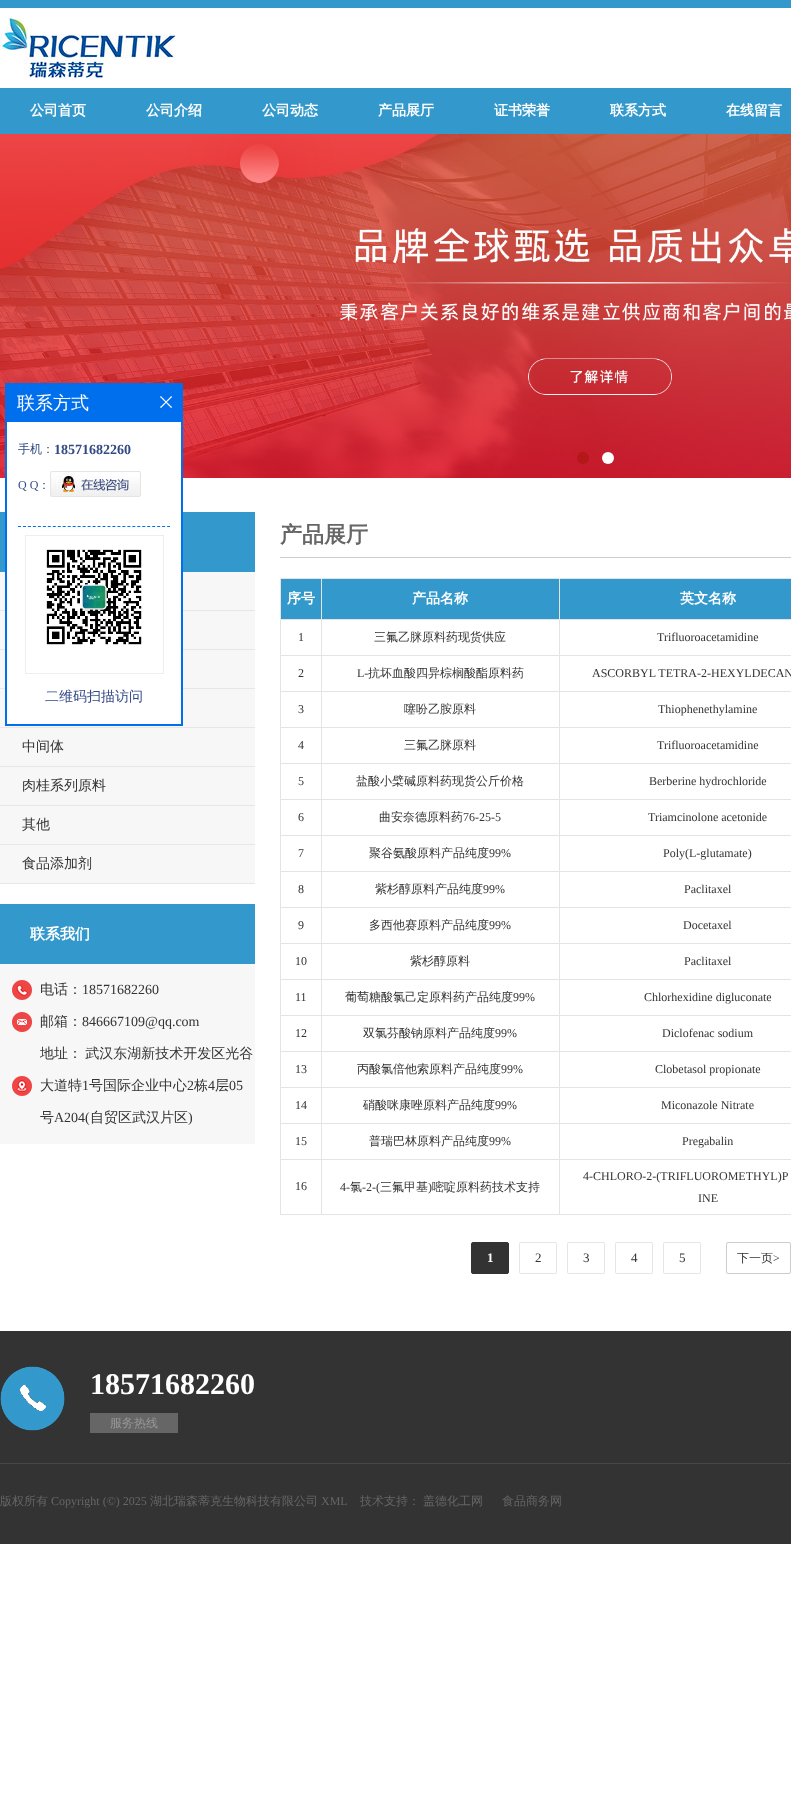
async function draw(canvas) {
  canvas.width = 791;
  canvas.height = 1820;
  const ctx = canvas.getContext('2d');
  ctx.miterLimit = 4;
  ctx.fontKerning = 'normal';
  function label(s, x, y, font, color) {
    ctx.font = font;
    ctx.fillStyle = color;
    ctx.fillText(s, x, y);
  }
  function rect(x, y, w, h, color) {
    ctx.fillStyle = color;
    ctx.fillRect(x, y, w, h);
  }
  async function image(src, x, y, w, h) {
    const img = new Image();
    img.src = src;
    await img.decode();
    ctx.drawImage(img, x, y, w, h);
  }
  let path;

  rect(0, 0, 791, 1820, '#fff');
  rect(0, 0, 791, 8, '#39c');
  await image('assets/img1.png', 0, 18, 176, 60);
  rect(0, 88, 791, 46, '#39c');
  label('公司首页', 30, 115, 'bold 14px WenQuanYi Zen Hei', '#fff');
  label('公司介绍', 146, 115, 'bold 14px WenQuanYi Zen Hei', '#fff');
  label('公司动态', 262, 115, 'bold 14px WenQuanYi Zen Hei', '#fff');
  label('产品展厅', 378, 115, 'bold 14px WenQuanYi Zen Hei', '#fff');
  label('证书荣誉', 494, 115, 'bold 14px WenQuanYi Zen Hei', '#fff');
  label('联系方式', 610, 115, 'bold 14px WenQuanYi Zen Hei', '#fff');
  label('在线留言', 726, 115, 'bold 14px WenQuanYi Zen Hei', '#fff');
  await image('assets/img2.png', 0, 134, 791, 344);
  ctx.fillStyle = '#b51818';
  ctx.beginPath();
  ctx.arc(583, 458, 6, 0, 2 * Math.PI);
  ctx.fill();
  ctx.fillStyle = '#fff';
  ctx.beginPath();
  ctx.arc(608, 458, 6, 0, 2 * Math.PI);
  ctx.fill();
  rect(0, 512, 255, 60, '#39c');
  rect(0, 572, 255, 311, '#f7f7f7');
  rect(0, 610, 255, 1, '#e7e7e7');
  rect(0, 649, 255, 1, '#e7e7e7');
  rect(0, 688, 255, 1, '#e7e7e7');
  rect(5, 383, 178, 343, '#006fed');
  label('联系方式', 17, 409, '500 18px WenQuanYi Zen Hei', '#fff');
  await image('assets/img3.png', 160, 396, 12, 12);
  rect(7, 422, 174, 302, '#fff');
  path = new Path2D('M18 526.5H170');
  ctx.strokeStyle = '#006fed';
  ctx.setLineDash([3, 1.97]);
  ctx.stroke(path);
  label('手机：', 18, 453, '500 12px WenQuanYi Zen Hei', '#314985');
  label('18571682260', 54, 454, 'bold 14px Liberation Serif', '#314985');
  label('Q Q', 18, 489, '12px Liberation Serif', '#314985');
  label('：', 38, 489, '500 12px WenQuanYi Zen Hei', '#314985');
  await image('assets/img4.png', 50, 471, 91, 26);
  ctx.strokeStyle = '#eee';
  ctx.setLineDash([]);
  ctx.strokeRect(25.5, 535.5, 138, 138);
  await image('assets/img5.png', 46, 549, 96, 96);
  label('二维码扫描访问', 45, 701, '500 14px WenQuanYi Zen Hei', '#314985');
  rect(0, 727, 255, 1, '#e7e7e7');
  rect(0, 766, 255, 1, '#e7e7e7');
  label('中间体', 22, 751, '500 14px WenQuanYi Zen Hei', '#333');
  rect(0, 805, 255, 1, '#e7e7e7');
  label('肉桂系列原料', 22, 790, '500 14px WenQuanYi Zen Hei', '#333');
  rect(0, 844, 255, 1, '#e7e7e7');
  label('其他', 22, 829, '500 14px WenQuanYi Zen Hei', '#333');
  rect(0, 883, 255, 1, '#e7e7e7');
  label('食品添加剂', 22, 868, '500 14px WenQuanYi Zen Hei', '#333');
  rect(0, 904, 255, 60, '#39c');
  label('联系我们', 30, 939, 'bold 15px WenQuanYi Zen Hei', '#fff');
  rect(0, 964, 255, 180, '#f7f7f7');
  await image('assets/img6.png', 12, 980, 20, 20);
  label('电话：', 40, 994, '500 14px WenQuanYi Zen Hei', '#333');
  label('18571682260', 82, 994, '14px Liberation Serif', '#333');
  await image('assets/img7.png', 12, 1012, 20, 20);
  label('邮箱：', 40, 1026, '500 14px WenQuanYi Zen Hei', '#333');
  label('846667109@qq.com', 82, 1026, '14px Liberation Serif', '#333');
  await image('assets/img8.png', 12, 1076, 20, 20);
  ctx.wordSpacing = '-1px';
  label('地址： 武汉东湖新技术开发区光谷', 40, 1058, '500 14px WenQuanYi Zen Hei', '#333');
  ctx.wordSpacing = '0px';
  label('大道特', 40, 1090, '500 14px WenQuanYi Zen Hei', '#333');
  label('1', 82, 1090, '14px Liberation Serif', '#333');
  label('号国际企业中心', 89, 1090, '500 14px WenQuanYi Zen Hei', '#333');
  label('2', 187, 1090, '14px Liberation Serif', '#333');
  label('栋', 194, 1090, '500 14px WenQuanYi Zen Hei', '#333');
  label('4', 208, 1090, '14px Liberation Serif', '#333');
  label('层', 215, 1090, '500 14px WenQuanYi Zen Hei', '#333');
  label('05', 229, 1090, '14px Liberation Serif', '#333');
  label('号', 40, 1122, '500 14px WenQuanYi Zen Hei', '#333');
  label('A204(', 54, 1122, '14px Liberation Serif', '#333');
  label('自贸区武汉片区', 90, 1122, '500 14px WenQuanYi Zen Hei', '#333');
  label(')', 188, 1122, '14px Liberation Serif', '#333');
  rect(280, 557, 511, 1, '#ccc');
  label('产品展厅', 280, 542, 'bold 22px WenQuanYi Zen Hei', '#666');
  rect(280, 578, 511, 1, '#e4e4e4');
  rect(281, 579, 510, 40, '#39c');
  rect(280, 619, 511, 1, '#e4e4e4');
  rect(280, 579, 1, 41, '#e4e4e4');
  label('序号', 287, 603, 'bold 14px WenQuanYi Zen Hei', '#fff');
  rect(321, 579, 1, 41, '#e4e4e4');
  label('产品名称', 412, 603, 'bold 14px WenQuanYi Zen Hei', '#fff');
  rect(559, 579, 1, 41, '#e4e4e4');
  label('英文名称', 680, 603, 'bold 14px WenQuanYi Zen Hei', '#fff');
  rect(280, 655, 511, 1, '#e4e4e4');
  rect(280, 620, 1, 36, '#e4e4e4');
  label('1', 298, 641, '12px Liberation Serif', '#333');
  rect(321, 620, 1, 36, '#e4e4e4');
  label('三氟乙脒原料药现货供应', 374, 641, '500 12px WenQuanYi Zen Hei', '#333');
  rect(559, 620, 1, 36, '#e4e4e4');
  label('Trifluoroacetamidine', 657, 641, '12px Liberation Serif', '#333');
  rect(280, 691, 511, 1, '#e4e4e4');
  rect(280, 656, 1, 36, '#e4e4e4');
  label('2', 298, 677, '12px Liberation Serif', '#333');
  rect(321, 656, 1, 36, '#e4e4e4');
  label('L-', 357, 677, '12px Liberation Serif', '#333');
  label('抗坏血酸四异棕榈酸酯原料药', 368, 677, '500 12px WenQuanYi Zen Hei', '#333');
  rect(559, 656, 1, 36, '#e4e4e4');
  label('ASCORBYL TETRA-2-HEXYLDECAN', 592, 677, '12px Liberation Serif', '#333');
  rect(280, 727, 511, 1, '#e4e4e4');
  rect(280, 692, 1, 36, '#e4e4e4');
  label('3', 298, 713, '12px Liberation Serif', '#333');
  rect(321, 692, 1, 36, '#e4e4e4');
  label('噻吩乙胺原料', 404, 713, '500 12px WenQuanYi Zen Hei', '#333');
  rect(559, 692, 1, 36, '#e4e4e4');
  label('Thiophenethylamine', 658, 713, '12px Liberation Serif', '#333');
  rect(280, 763, 511, 1, '#e4e4e4');
  rect(280, 728, 1, 36, '#e4e4e4');
  label('4', 298, 749, '12px Liberation Serif', '#333');
  rect(321, 728, 1, 36, '#e4e4e4');
  label('三氟乙脒原料', 404, 749, '500 12px WenQuanYi Zen Hei', '#333');
  rect(559, 728, 1, 36, '#e4e4e4');
  label('Trifluoroacetamidine', 657, 749, '12px Liberation Serif', '#333');
  rect(280, 799, 511, 1, '#e4e4e4');
  rect(280, 764, 1, 36, '#e4e4e4');
  label('5', 298, 785, '12px Liberation Serif', '#333');
  rect(321, 764, 1, 36, '#e4e4e4');
  label('盐酸小檗碱原料药现货公斤价格', 356, 785, '500 12px WenQuanYi Zen Hei', '#333');
  rect(559, 764, 1, 36, '#e4e4e4');
  label('Berberine hydrochloride', 649, 785, '12px Liberation Serif', '#333');
  rect(280, 835, 511, 1, '#e4e4e4');
  rect(280, 800, 1, 36, '#e4e4e4');
  label('6', 298, 821, '12px Liberation Serif', '#333');
  rect(321, 800, 1, 36, '#e4e4e4');
  label('曲安奈德原料药', 379, 821, '500 12px WenQuanYi Zen Hei', '#333');
  label('76-25-5', 463, 821, '12px Liberation Serif', '#333');
  rect(559, 800, 1, 36, '#e4e4e4');
  label('Triamcinolone acetonide', 648, 821, '12px Liberation Serif', '#333');
  rect(280, 871, 511, 1, '#e4e4e4');
  rect(280, 836, 1, 36, '#e4e4e4');
  label('7', 298, 857, '12px Liberation Serif', '#333');
  rect(321, 836, 1, 36, '#e4e4e4');
  label('聚谷氨酸原料产品纯度', 369, 857, '500 12px WenQuanYi Zen Hei', '#333');
  label('99%', 489, 857, '12px Liberation Serif', '#333');
  rect(559, 836, 1, 36, '#e4e4e4');
  label('Poly(L-glutamate)', 663, 857, '12px Liberation Serif', '#333');
  rect(280, 907, 511, 1, '#e4e4e4');
  rect(280, 872, 1, 36, '#e4e4e4');
  label('8', 298, 893, '12px Liberation Serif', '#333');
  rect(321, 872, 1, 36, '#e4e4e4');
  label('紫杉醇原料产品纯度', 375, 893, '500 12px WenQuanYi Zen Hei', '#333');
  label('99%', 483, 893, '12px Liberation Serif', '#333');
  rect(559, 872, 1, 36, '#e4e4e4');
  label('Paclitaxel', 684, 893, '12px Liberation Serif', '#333');
  rect(280, 943, 511, 1, '#e4e4e4');
  rect(280, 908, 1, 36, '#e4e4e4');
  label('9', 298, 929, '12px Liberation Serif', '#333');
  rect(321, 908, 1, 36, '#e4e4e4');
  label('多西他赛原料产品纯度', 369, 929, '500 12px WenQuanYi Zen Hei', '#333');
  label('99%', 489, 929, '12px Liberation Serif', '#333');
  rect(559, 908, 1, 36, '#e4e4e4');
  label('Docetaxel', 683, 929, '12px Liberation Serif', '#333');
  rect(280, 979, 511, 1, '#e4e4e4');
  rect(280, 944, 1, 36, '#e4e4e4');
  label('10', 295, 965, '12px Liberation Serif', '#333');
  rect(321, 944, 1, 36, '#e4e4e4');
  label('紫杉醇原料', 410, 965, '500 12px WenQuanYi Zen Hei', '#333');
  rect(559, 944, 1, 36, '#e4e4e4');
  label('Paclitaxel', 684, 965, '12px Liberation Serif', '#333');
  rect(280, 1015, 511, 1, '#e4e4e4');
  rect(280, 980, 1, 36, '#e4e4e4');
  label('11', 295, 1001, '12px Liberation Serif', '#333');
  rect(321, 980, 1, 36, '#e4e4e4');
  label('葡萄糖酸氯己定原料药产品纯度', 345, 1001, '500 12px WenQuanYi Zen Hei', '#333');
  label('99%', 513, 1001, '12px Liberation Serif', '#333');
  rect(559, 980, 1, 36, '#e4e4e4');
  label('Chlorhexidine digluconate', 644, 1001, '12px Liberation Serif', '#333');
  rect(280, 1051, 511, 1, '#e4e4e4');
  rect(280, 1016, 1, 36, '#e4e4e4');
  label('12', 295, 1037, '12px Liberation Serif', '#333');
  rect(321, 1016, 1, 36, '#e4e4e4');
  label('双氯芬酸钠原料产品纯度', 363, 1037, '500 12px WenQuanYi Zen Hei', '#333');
  label('99%', 495, 1037, '12px Liberation Serif', '#333');
  rect(559, 1016, 1, 36, '#e4e4e4');
  label('Diclofenac sodium', 662, 1037, '12px Liberation Serif', '#333');
  rect(280, 1087, 511, 1, '#e4e4e4');
  rect(280, 1052, 1, 36, '#e4e4e4');
  label('13', 295, 1073, '12px Liberation Serif', '#333');
  rect(321, 1052, 1, 36, '#e4e4e4');
  label('丙酸氯倍他索原料产品纯度', 357, 1073, '500 12px WenQuanYi Zen Hei', '#333');
  label('99%', 501, 1073, '12px Liberation Serif', '#333');
  rect(559, 1052, 1, 36, '#e4e4e4');
  label('Clobetasol propionate', 655, 1073, '12px Liberation Serif', '#333');
  rect(280, 1123, 511, 1, '#e4e4e4');
  rect(280, 1088, 1, 36, '#e4e4e4');
  label('14', 295, 1109, '12px Liberation Serif', '#333');
  rect(321, 1088, 1, 36, '#e4e4e4');
  label('硝酸咪康唑原料产品纯度', 363, 1109, '500 12px WenQuanYi Zen Hei', '#333');
  label('99%', 495, 1109, '12px Liberation Serif', '#333');
  rect(559, 1088, 1, 36, '#e4e4e4');
  label('Miconazole Nitrate', 661, 1109, '12px Liberation Serif', '#333');
  rect(280, 1159, 511, 1, '#e4e4e4');
  rect(280, 1124, 1, 36, '#e4e4e4');
  label('15', 295, 1145, '12px Liberation Serif', '#333');
  rect(321, 1124, 1, 36, '#e4e4e4');
  label('普瑞巴林原料产品纯度', 369, 1145, '500 12px WenQuanYi Zen Hei', '#333');
  label('99%', 489, 1145, '12px Liberation Serif', '#333');
  rect(559, 1124, 1, 36, '#e4e4e4');
  label('Pregabalin', 682, 1145, '12px Liberation Serif', '#333');
  rect(280, 1214, 511, 1, '#e4e4e4');
  rect(280, 1160, 1, 55, '#e4e4e4');
  label('16', 295, 1190, '12px Liberation Serif', '#333');
  rect(321, 1160, 1, 55, '#e4e4e4');
  label('4-', 340, 1191, '12px Liberation Serif', '#333');
  label('氯', 350, 1191, '500 12px WenQuanYi Zen Hei', '#333');
  label('-2-(', 362, 1191, '12px Liberation Serif', '#333');
  label('三氟甲基', 380, 1191, '500 12px WenQuanYi Zen Hei', '#333');
  label(')', 428, 1191, '12px Liberation Serif', '#333');
  label('嘧啶原料药技术支持', 432, 1191, '500 12px WenQuanYi Zen Hei', '#333');
  rect(559, 1160, 1, 55, '#e4e4e4');
  label('4-CHLORO-2-(TRIFLUOROMETHYL)P', 583, 1180, '12px Liberation Serif', '#333');
  label('INE', 698, 1202, '12px Liberation Serif', '#333');
  ctx.beginPath();
  ctx.roundRect(471.5, 1242.5, 37, 31, 1.5);
  ctx.fill();
  ctx.strokeStyle = '#333';
  ctx.stroke();
  label('1', 487, 1262, 'bold 13px Liberation Serif', '#fff');
  ctx.beginPath();
  ctx.roundRect(519.5, 1242.5, 37, 31, 1.5);
  ctx.strokeStyle = '#e5e5e5';
  ctx.stroke();
  label('2', 535, 1262, '13px Liberation Serif', '#333');
  ctx.beginPath();
  ctx.roundRect(567.5, 1242.5, 37, 31, 1.5);
  ctx.stroke();
  label('3', 583, 1262, '13px Liberation Serif', '#333');
  ctx.beginPath();
  ctx.roundRect(615.5, 1242.5, 37, 31, 1.5);
  ctx.stroke();
  label('4', 631, 1262, '13px Liberation Serif', '#333');
  ctx.beginPath();
  ctx.roundRect(663.5, 1242.5, 37, 31, 1.5);
  ctx.stroke();
  label('5', 679, 1262, '13px Liberation Serif', '#333');
  ctx.beginPath();
  ctx.roundRect(726.5, 1242.5, 64, 31, 1.5);
  ctx.strokeStyle = '#ccc';
  ctx.stroke();
  label('下一页', 737, 1262, '500 12px WenQuanYi Zen Hei', '#333');
  label('>', 773, 1262, '12px Liberation Serif', '#333');
  rect(0, 1331, 791, 213, '#333');
  await image('assets/img9.png', 0, 1366, 65, 65);
  rect(0, 1463, 791, 1, '#484848');
  label('18571682260', 90, 1394, 'bold 30px Liberation Serif', '#fff');
  rect(90, 1413, 88, 20, '#666');
  label('服务热线', 110, 1427, '500 12px WenQuanYi Zen Hei', '#999');
  label('版权所有', 0, 1505, '500 12px WenQuanYi Zen Hei', '#666');
  label('Copyright (©) 2025', 51, 1505, '12px Liberation Serif', '#666');
  label('湖北瑞森蒂克生物科技有限公司', 150, 1505, '500 12px WenQuanYi Zen Hei', '#666');
  label('XML', 321, 1505, '12px Liberation Serif', '#666');
  label('技术支持：', 360, 1505, '500 12px WenQuanYi Zen Hei', '#666');
  label('盖德化工网', 423, 1505, '500 12px WenQuanYi Zen Hei', '#666');
  label('食品商务网', 502, 1505, '500 12px WenQuanYi Zen Hei', '#666');
}

draw(document.querySelector('canvas'));
